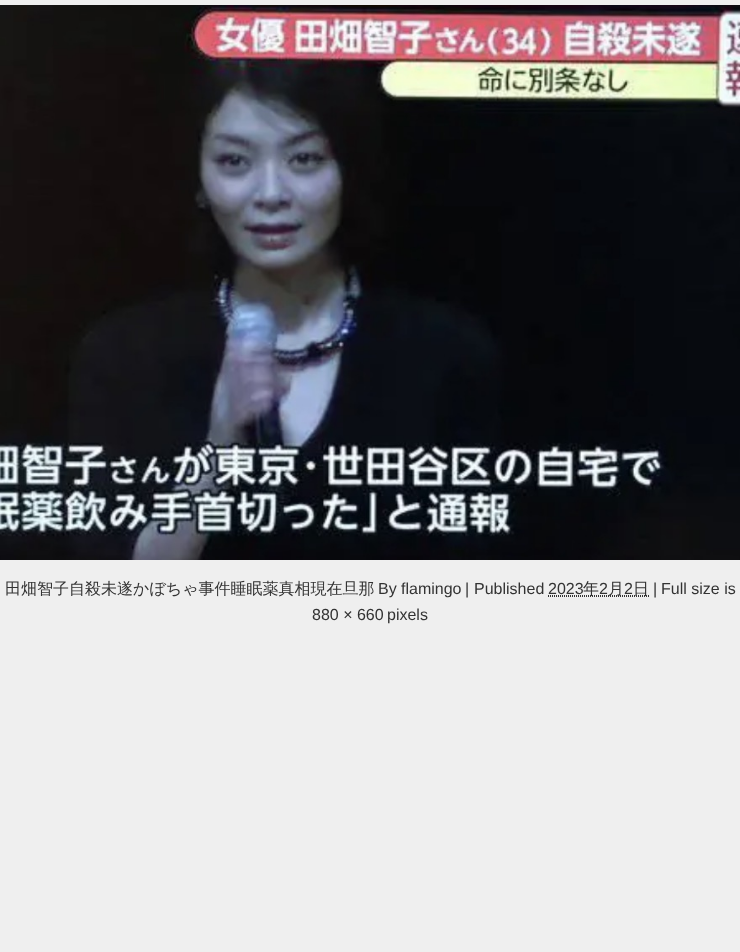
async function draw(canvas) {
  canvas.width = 740;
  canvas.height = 952;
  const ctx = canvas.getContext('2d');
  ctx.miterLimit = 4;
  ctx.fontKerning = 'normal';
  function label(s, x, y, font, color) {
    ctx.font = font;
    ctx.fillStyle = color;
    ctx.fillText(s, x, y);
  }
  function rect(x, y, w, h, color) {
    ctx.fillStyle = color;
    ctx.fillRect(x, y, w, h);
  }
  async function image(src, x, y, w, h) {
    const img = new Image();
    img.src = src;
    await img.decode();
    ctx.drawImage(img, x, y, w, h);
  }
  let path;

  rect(0, 0, 740, 952, '#efefef');
  await image('assets/img1.png', 0, 5, 740, 555);
  label('田畑智子自殺未遂かぼちゃ事件睡眠薬真相現在旦那', 5, 594, '500 16px WenQuanYi Zen Hei', '#333');
  label('By', 378, 594, '16px Liberation Sans', '#333');
  label('flamingo', 401, 594, '16px Liberation Sans', '#333');
  label('|', 465, 594, '16px Liberation Sans', '#333');
  label('Published', 474, 594, '16px Liberation Sans', '#333');
  label('2023', 548, 594, '16px Liberation Sans', '#333');
  path = new Path2D('M548 595.5H649.5');
  ctx.strokeStyle = '#333';
  ctx.setLineDash([1, 1]);
  ctx.stroke(path);
  label('年', 583, 594, '500 16px WenQuanYi Zen Hei', '#333');
  label('2', 599, 594, '16px Liberation Sans', '#333');
  path = new Path2D('M548 596.5H649');
  ctx.stroke(path);
  label('月', 608, 594, '500 16px WenQuanYi Zen Hei', '#333');
  label('2', 624, 594, '16px Liberation Sans', '#333');
  label('日', 633, 594, '500 16px WenQuanYi Zen Hei', '#333');
  label('|', 653, 594, '16px Liberation Sans', '#333');
  label('Full size is', 661, 594, '16px Liberation Sans', '#333');
  label('880 × 660', 312, 620, '16px Liberation Sans', '#333');
  label('pixels', 387, 620, '16px Liberation Sans', '#333');
}

draw(document.querySelector('canvas'));
